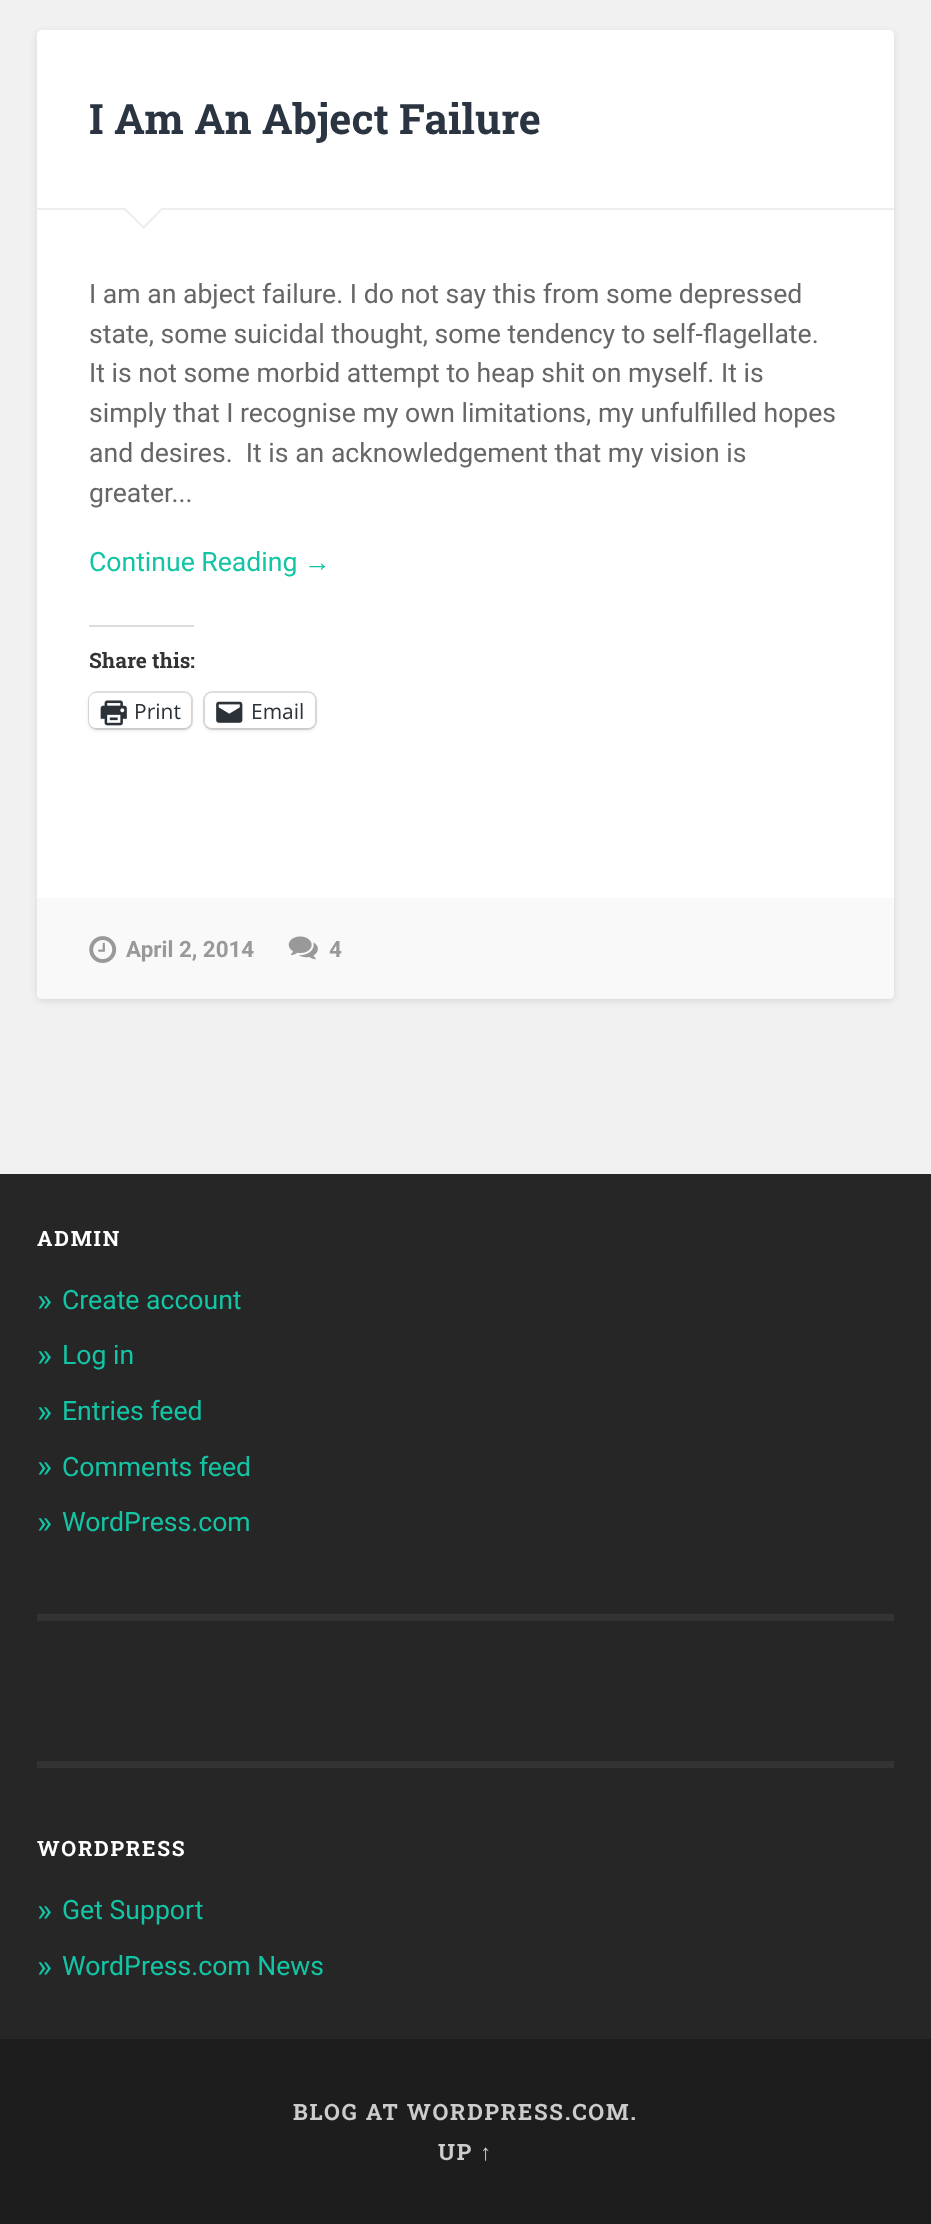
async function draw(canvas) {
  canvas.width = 931;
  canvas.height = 2224;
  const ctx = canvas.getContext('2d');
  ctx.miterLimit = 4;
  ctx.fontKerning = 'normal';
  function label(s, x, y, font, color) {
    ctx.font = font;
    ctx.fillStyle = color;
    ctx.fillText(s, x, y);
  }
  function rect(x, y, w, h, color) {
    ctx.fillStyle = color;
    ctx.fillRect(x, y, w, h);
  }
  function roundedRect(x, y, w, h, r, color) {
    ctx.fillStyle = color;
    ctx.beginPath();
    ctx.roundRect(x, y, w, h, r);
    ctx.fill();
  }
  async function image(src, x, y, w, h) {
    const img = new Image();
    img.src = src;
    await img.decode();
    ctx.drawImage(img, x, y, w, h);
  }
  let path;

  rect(0, 0, 931, 2224, '#f1f1f1');
  ctx.fillStyle = '#0000001a';
  ctx.filter = 'blur(3.5px)';
  ctx.beginPath();
  ctx.roundRect(37, 32, 857, 969, 5);
  ctx.fill();
  ctx.filter = 'none';
  roundedRect(37, 30, 857, 969, 5, '#fff');
  rect(37, 208, 857, 2, '#eee');
  label('I Am An Abject Failure', 89, 134, 'bold 42px Roboto Slab', '#2b3542');
  ctx.fillStyle = '#eee';
  path = new Path2D('M122 208H164L144 229Z');
  ctx.fill(path);
  ctx.fillStyle = '#fff';
  path = new Path2D('M124 206.5H163L143.5 226Z');
  ctx.fill(path);
  label('I am an abject failure. I do not say this from some depressed', 89, 303, '26.6px Roboto', '#666');
  label('state, some suicidal thought, some tendency to self-flagellate.', 89, 343, '26.6px Roboto', '#666');
  label('It is not some morbid attempt to heap shit on myself. It is', 89, 382, '26.6px Roboto', '#666');
  label('simply that I recognise my own limitations, my unfulfilled hopes', 89, 422, '26.6px Roboto', '#666');
  label('and desires.  It is an acknowledgement that my vision is', 89, 462, '26.6px Roboto', '#666');
  label('greater...', 89, 502, '26.6px Roboto', '#666');
  label('Continue Reading', 89, 571, '26.6px Roboto', '#13c4a5');
  label('→', 304, 571, '26.6px Liberation Sans', '#13c4a5');
  rect(89, 625, 105, 2, '#dcdcde');
  label('Share this:', 89, 668, 'bold 21px Roboto Slab', '#333');
  ctx.beginPath();
  ctx.roundRect(89, 692, 103, 37, 8);
  ctx.strokeStyle = '#e0e0e0';
  ctx.lineWidth = 2;
  ctx.stroke();
  ctx.fillStyle = '#0000001f';
  ctx.filter = 'blur(2px)';
  ctx.beginPath();
  ctx.roundRect(89, 695, 102, 35, 7);
  ctx.fill();
  ctx.filter = 'none';
  roundedRect(89, 693, 102, 35, 7, '#fff');
  await image('assets/img1.png', 100, 700, 27, 26);
  label('Print', 134, 719, '21px Open Sans', '#2c3338');
  ctx.beginPath();
  ctx.roundRect(204, 692, 112, 37, 8);
  ctx.stroke();
  ctx.fillStyle = '#0000001f';
  ctx.filter = 'blur(2px)';
  ctx.beginPath();
  ctx.roundRect(205, 695, 110, 35, 7);
  ctx.fill();
  ctx.filter = 'none';
  roundedRect(205, 693, 110, 35, 7, '#fff');
  await image('assets/img2.png', 216, 701, 27, 22);
  label('Email', 251, 719, '21px Open Sans', '#2c3338');
  ctx.fillStyle = '#f9f9f9';
  ctx.beginPath();
  ctx.roundRect(37, 898, 857, 101, [0, 0, 5, 5]);
  ctx.fill();
  await image('assets/img3.png', 89, 936, 28, 27);
  label('April 2, 2014', 126, 957, 'bold 22.4px Roboto', '#999');
  await image('assets/img4.png', 288, 936, 30, 24);
  label('4', 329, 957, 'bold 22.4px Roboto', '#999');
  rect(0, 1174, 931, 865, '#262626');
  ctx.letterSpacing = '1.75px';
  label('ADMIN', 37, 1246, 'bold 21px Roboto Slab', '#fff');
  ctx.letterSpacing = '0px';
  label('»', 37, 1311, '32px Roboto', '#13c4a5');
  label('Create account', 62, 1309, '26.6px Roboto', '#13c4a5');
  label('»', 37, 1366, '32px Roboto', '#13c4a5');
  label('Log in', 62, 1364, '26.6px Roboto', '#13c4a5');
  label('»', 37, 1422, '32px Roboto', '#13c4a5');
  label('Entries feed', 62, 1420, '26.6px Roboto', '#13c4a5');
  label('»', 37, 1477, '32px Roboto', '#13c4a5');
  label('Comments feed', 62, 1476, '26.6px Roboto', '#13c4a5');
  label('»', 37, 1533, '32px Roboto', '#13c4a5');
  label('WordPress.com', 62, 1531, '26.6px Roboto', '#13c4a5');
  rect(37, 1614, 857, 7, '#333');
  rect(37, 1761, 857, 7, '#333');
  ctx.letterSpacing = '1.75px';
  label('WORDPRESS', 37, 1856, 'bold 21px Roboto Slab', '#fff');
  ctx.letterSpacing = '0px';
  label('»', 37, 1921, '32px Roboto', '#13c4a5');
  label('Get Support', 62, 1919, '26.6px Roboto', '#13c4a5');
  label('»', 37, 1977, '32px Roboto', '#13c4a5');
  label('WordPress.com News', 62, 1975, '26.6px Roboto', '#13c4a5');
  rect(0, 2039, 931, 185, '#1d1d1d');
  ctx.letterSpacing = '1.75px';
  label('BLOG AT WORDPRESS.COM.', 293, 2120, 'bold 22.4px Roboto Slab', '#ccc');
  label('UP', 438, 2160, 'bold 22.4px Roboto Slab', '#ccc');
  label('↑', 480, 2160, 'bold 22.4px Liberation Sans', '#ccc');
}

draw(document.querySelector('canvas'));
